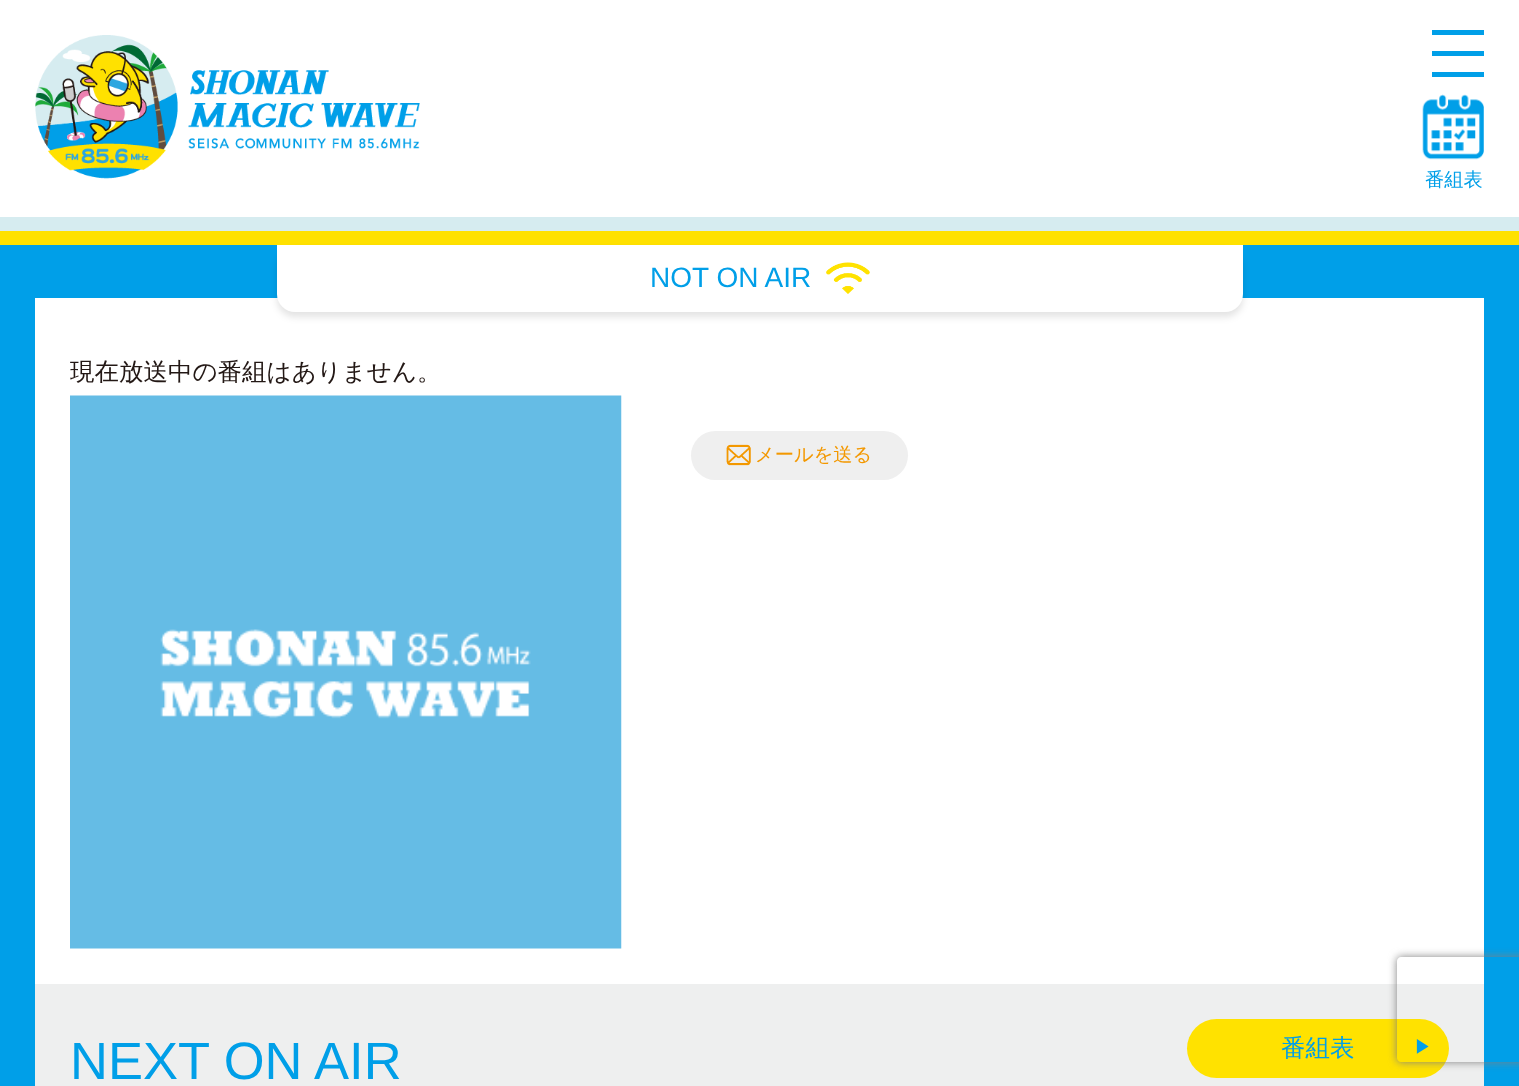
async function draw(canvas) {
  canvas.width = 1519;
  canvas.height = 1086;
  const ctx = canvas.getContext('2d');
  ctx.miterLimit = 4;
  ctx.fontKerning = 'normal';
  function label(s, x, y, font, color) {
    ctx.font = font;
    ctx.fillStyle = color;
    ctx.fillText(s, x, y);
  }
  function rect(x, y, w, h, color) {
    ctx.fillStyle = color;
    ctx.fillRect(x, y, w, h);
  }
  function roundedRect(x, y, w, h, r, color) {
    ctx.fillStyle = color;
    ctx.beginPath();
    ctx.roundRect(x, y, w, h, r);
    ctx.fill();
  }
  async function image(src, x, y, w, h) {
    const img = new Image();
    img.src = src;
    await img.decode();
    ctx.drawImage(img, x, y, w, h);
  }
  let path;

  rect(0, 0, 1519, 1086, '#fff');
  rect(0, 217, 1519, 14, '#d6ecf0');
  await image('assets/img1.png', 35, 35, 385, 144);
  rect(1432, 51, 52, 5, '#009fe8');
  rect(1432, 30, 52, 5, '#009fe8');
  rect(1432, 72, 52, 5, '#009fe8');
  await image('assets/img2.png', 1422, 94, 62, 66);
  label('番組表', 1425, 186, '500 19.25px WenQuanYi Zen Hei', '#009fe8');
  rect(0, 231, 1519, 14, '#ffe100');
  rect(0, 245, 1519, 841, '#009fe8');
  rect(35, 298, 1449, 686, '#fff');
  ctx.fillStyle = '#0000001c';
  ctx.filter = 'blur(3.5px)';
  ctx.beginPath();
  ctx.roundRect(277, 250, 966, 67, 18);
  ctx.fill();
  ctx.filter = 'none';
  ctx.fillStyle = '#fff';
  ctx.beginPath();
  ctx.roundRect(277, 245, 966, 67, [0, 0, 18, 18]);
  ctx.fill();
  label('NOT ON AIR', 650, 287, '28px Liberation Sans', '#009fe8');
  await image('assets/img3.png', 826, 262, 44, 32);
  label('現在放送中の番組はありません。', 70, 380, '500 24.5px WenQuanYi Zen Hei', '#231815');
  await image('assets/img4.png', 70, 395, 552, 554);
  roundedRect(691, 431, 217, 49, 24.5, '#efefef');
  await image('assets/img5.png', 726, 444, 25, 22);
  label('メールを送る', 755, 461, '500 19.25px WenQuanYi Zen Hei', '#f39800');
  rect(35, 984, 1449, 102, '#eeefef');
  label('NEXT ON AIR', 70, 1079, '52.5px Liberation Sans', '#009fe8');
  roundedRect(1187, 1019, 262, 59, 29.5, '#ffe200');
  label('番組表', 1281, 1056, '500 24.5px WenQuanYi Zen Hei', '#009fe8');
  label('▶︎', 1414, 1053, '500 18px WenQuanYi Zen Hei', '#009fe8');
  ctx.save();
  path = new Path2D('M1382 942H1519V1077H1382ZM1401 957H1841C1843 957 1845 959 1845 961V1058C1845 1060 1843 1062 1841 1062H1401C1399 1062 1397 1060 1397 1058V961C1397 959 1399 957 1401 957Z');
  ctx.clip(path, 'evenodd');
  ctx.fillStyle = '#808080';
  ctx.filter = 'blur(4.5px)';
  ctx.beginPath();
  ctx.roundRect(1397, 957, 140, 105, 4);
  ctx.fill();
  ctx.filter = 'none';
  ctx.restore();
}

draw(document.querySelector('canvas'));
